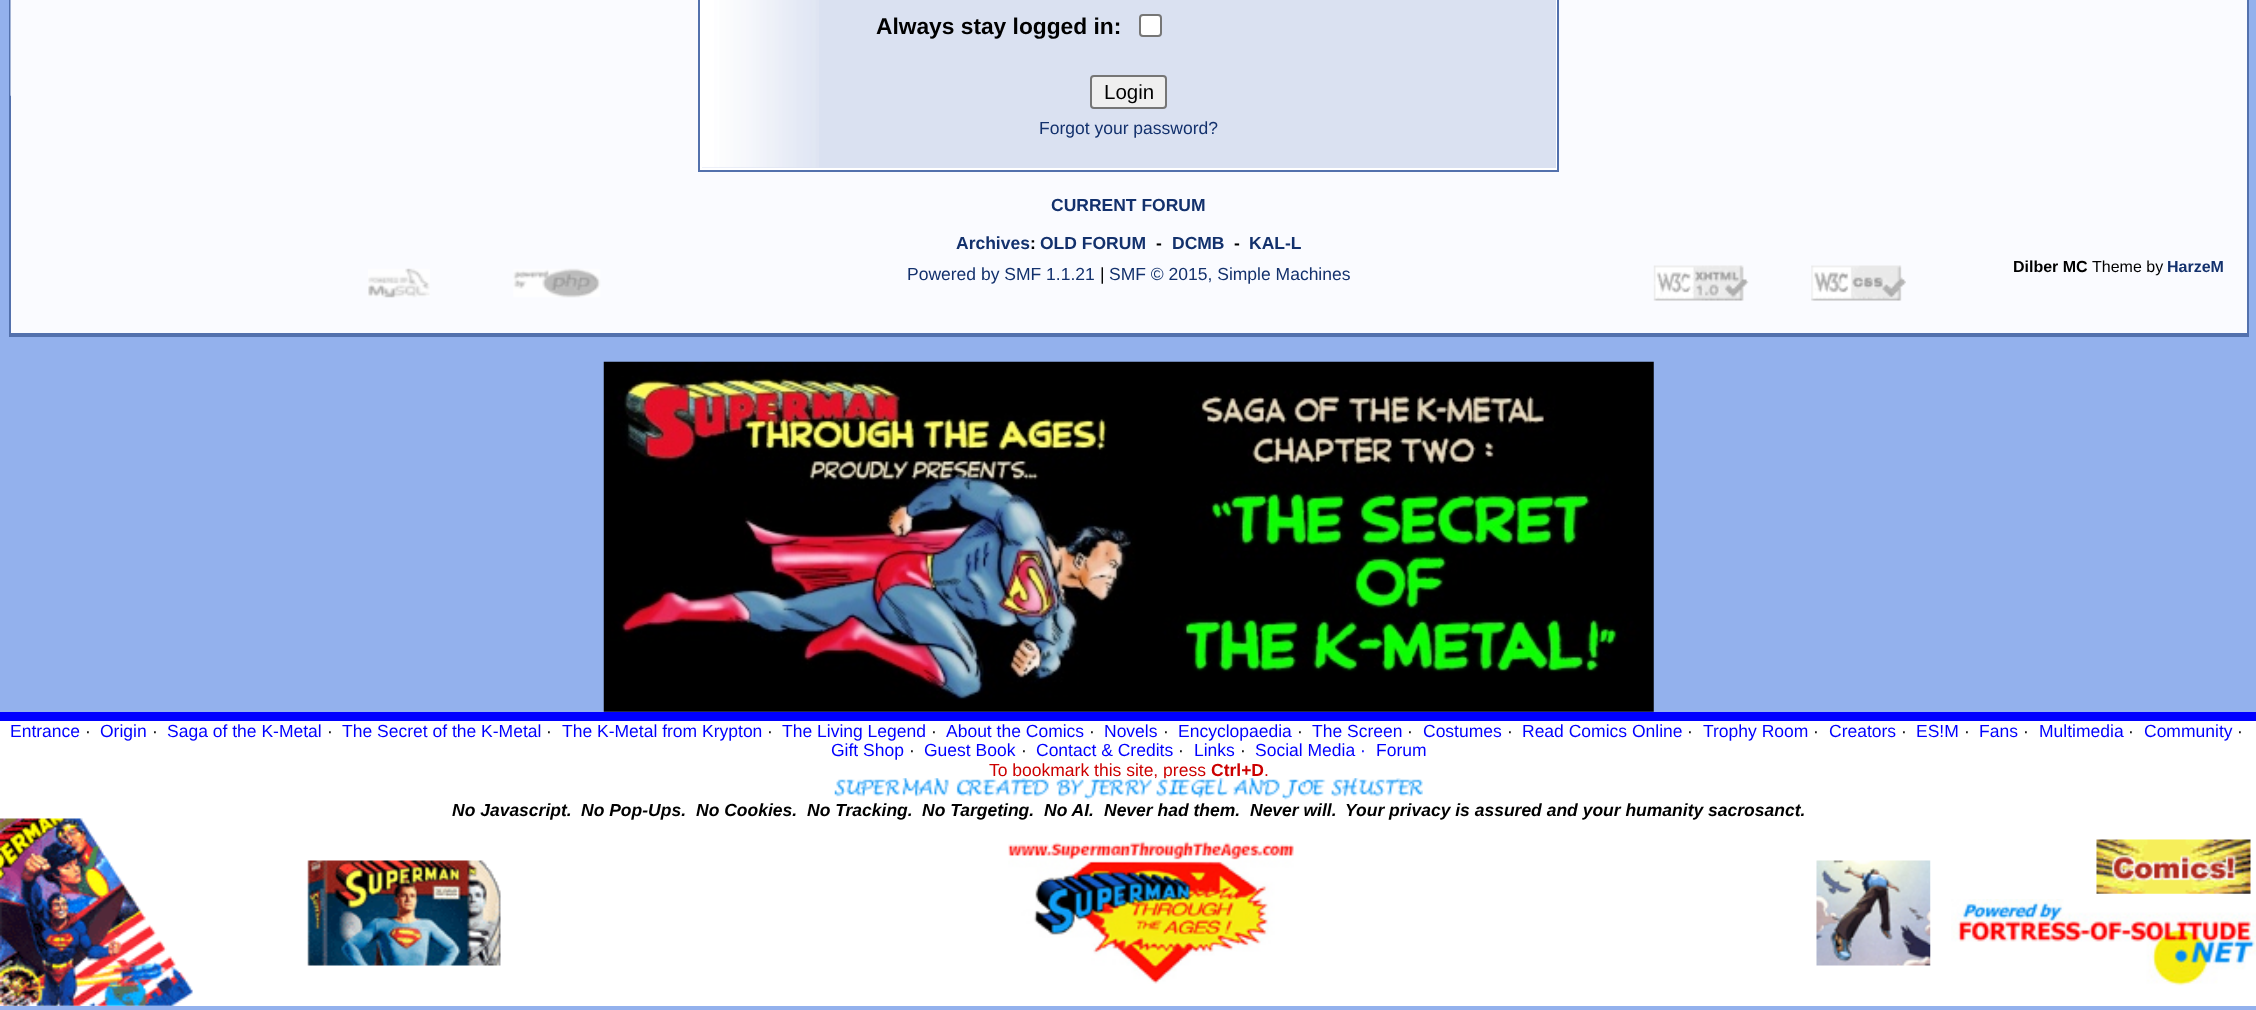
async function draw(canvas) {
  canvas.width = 2256;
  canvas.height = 1010;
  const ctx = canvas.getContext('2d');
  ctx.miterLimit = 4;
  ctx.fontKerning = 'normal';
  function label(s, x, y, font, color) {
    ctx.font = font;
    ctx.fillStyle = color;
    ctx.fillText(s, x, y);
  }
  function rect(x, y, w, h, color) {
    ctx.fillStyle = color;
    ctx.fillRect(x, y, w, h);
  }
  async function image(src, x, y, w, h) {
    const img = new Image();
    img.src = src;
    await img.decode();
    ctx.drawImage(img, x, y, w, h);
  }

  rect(0, 0, 2256, 1010, '#93b1ed');
  rect(11, 0, 2236, 333, '#fafbff');
  rect(2247, 0, 2, 336, '#5371ad');
  rect(9, 333, 2240, 4, '#5371ad');
  rect(9, 0, 2, 336, '#5371ad');
  await image('assets/img1.png', 10, 0, 1, 96);
  ctx.fillStyle = '#fff';
  ctx.beginPath();
  ctx.rect(699, -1, 859, 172);
  ctx.fill();
  ctx.strokeStyle = '#5371ad';
  ctx.lineWidth = 2;
  ctx.stroke();
  rect(702, 0, 854, 168, '#dae1f1');
  await image('assets/img2.png', 702, 0, 117, 168);
  label('Always stay logged in:', 876, 34, 'bold 22.75px Liberation Sans', '#000');
  ctx.fillStyle = '#fff';
  ctx.beginPath();
  ctx.roundRect(1140, 15, 21, 21, 3);
  ctx.fill();
  ctx.strokeStyle = '#767676';
  ctx.stroke();
  ctx.fillStyle = '#efefef';
  ctx.beginPath();
  ctx.roundRect(1091, 76, 75, 32, 3);
  ctx.fill();
  ctx.stroke();
  label('Login', 1104, 99, '20.5px Liberation Sans', '#000');
  label('Forgot your password?', 1039, 134, '17.5px Liberation Sans', '#13316d');
  label('CURRENT FORUM', 1051, 211, 'bold 17.5px Liberation Sans', '#13316d');
  label('Archives', 956, 249, 'bold 17.5px Liberation Sans', '#13316d');
  label(':', 1030, 249, 'bold 17.5px Liberation Sans', '#000');
  label('OLD FORUM', 1040, 249, 'bold 17.5px Liberation Sans', '#13316d');
  label('-', 1156, 249, 'bold 17.5px Liberation Sans', '#000');
  label('DCMB', 1172, 249, 'bold 17.5px Liberation Sans', '#13316d');
  label('-', 1234, 249, 'bold 17.5px Liberation Sans', '#000');
  label('KAL-L', 1249, 249, 'bold 17.5px Liberation Sans', '#13316d');
  await image('assets/img3.png', 368, 268, 62, 30);
  await image('assets/img4.png', 513, 268, 88, 30);
  label('Powered by SMF 1.1.21', 907, 280, '17.5px Liberation Sans', '#13316d');
  label('|', 1100, 280, '17.5px Liberation Sans', '#000');
  label('SMF © 2015, Simple Machines', 1109, 280, '17.5px Liberation Sans', '#13316d');
  await image('assets/img5.png', 1653, 265, 96, 36);
  await image('assets/img6.png', 1811, 265, 95, 36);
  label('Dilber MC', 2013, 272, 'bold 16px Liberation Sans', '#000');
  label('Theme by', 2092, 272, '16px Liberation Sans', '#000');
  label('HarzeM', 2167, 272, 'bold 16px Liberation Sans', '#13316d');
  await image('assets/img7.png', 603, 361, 1051, 351);
  rect(0, 712, 2256, 9, '#00f');
  rect(0, 721, 2256, 285, '#fff');
  label('Entrance', 10, 737, '17.5px Liberation Sans', '#00f');
  label('·', 85, 737, '17.5px Liberation Sans', '#000');
  label('Origin', 100, 737, '17.5px Liberation Sans', '#00f');
  label('·', 152, 737, '17.5px Liberation Sans', '#000');
  label('Saga of the K-Metal', 167, 737, '17.5px Liberation Sans', '#00f');
  label('·', 327, 737, '17.5px Liberation Sans', '#000');
  label('The Secret of the K-Metal', 342, 737, '17.5px Liberation Sans', '#00f');
  label('·', 546, 737, '17.5px Liberation Sans', '#000');
  label('The K-Metal from Krypton', 562, 737, '17.5px Liberation Sans', '#00f');
  label('·', 767, 737, '17.5px Liberation Sans', '#000');
  label('The Living Legend', 782, 737, '17.5px Liberation Sans', '#00f');
  label('·', 931, 737, '17.5px Liberation Sans', '#000');
  label('About the Comics', 946, 737, '17.5px Liberation Sans', '#00f');
  label('·', 1089, 737, '17.5px Liberation Sans', '#000');
  label('Novels', 1104, 737, '17.5px Liberation Sans', '#00f');
  label('·', 1163, 737, '17.5px Liberation Sans', '#000');
  label('Encyclopaedia', 1178, 737, '17.5px Liberation Sans', '#00f');
  label('·', 1297, 737, '17.5px Liberation Sans', '#000');
  label('The Screen', 1312, 737, '17.5px Liberation Sans', '#00f');
  label('·', 1407, 737, '17.5px Liberation Sans', '#000');
  label('Costumes', 1423, 737, '17.5px Liberation Sans', '#00f');
  label('·', 1507, 737, '17.5px Liberation Sans', '#000');
  label('Read Comics Online', 1522, 737, '17.5px Liberation Sans', '#00f');
  label('·', 1687, 737, '17.5px Liberation Sans', '#000');
  label('Trophy Room', 1703, 737, '17.5px Liberation Sans', '#00f');
  label('·', 1813, 737, '17.5px Liberation Sans', '#000');
  label('Creators', 1829, 737, '17.5px Liberation Sans', '#00f');
  label('·', 1901, 737, '17.5px Liberation Sans', '#000');
  label('ES!M', 1916, 737, '17.5px Liberation Sans', '#00f');
  label('·', 1964, 737, '17.5px Liberation Sans', '#000');
  label('Fans', 1979, 737, '17.5px Liberation Sans', '#00f');
  label('·', 2023, 737, '17.5px Liberation Sans', '#000');
  label('Multimedia', 2039, 737, '17.5px Liberation Sans', '#00f');
  label('·', 2128, 737, '17.5px Liberation Sans', '#000');
  label('Community', 2144, 737, '17.5px Liberation Sans', '#00f');
  label('·', 2237, 737, '17.5px Liberation Sans', '#000');
  label('Gift Shop', 831, 756, '17.5px Liberation Sans', '#00f');
  label('·', 909, 756, '17.5px Liberation Sans', '#000');
  label('Guest Book', 924, 756, '17.5px Liberation Sans', '#00f');
  label('·', 1021, 756, '17.5px Liberation Sans', '#000');
  label('Contact & Credits', 1036, 756, '17.5px Liberation Sans', '#00f');
  label('·', 1178, 756, '17.5px Liberation Sans', '#000');
  label('Links', 1194, 756, '17.5px Liberation Sans', '#00f');
  label('·', 1240, 756, '17.5px Liberation Sans', '#000');
  label('Social Media ·', 1255, 756, '17.5px Liberation Sans', '#00f');
  label('Forum', 1376, 756, '17.5px Liberation Sans', '#00f');
  label('To bookmark this site, press', 989, 776, '17.5px Liberation Sans', '#c00');
  label('Ctrl+D', 1211, 776, 'bold 17.5px Liberation Sans', '#c00');
  label('.', 1264, 776, '17.5px Liberation Sans', '#c00');
  await image('assets/img8.png', 834, 778, 589, 22);
  label('No Javascript.', 452, 816, 'italic bold 17.5px Liberation Sans', '#000');
  label('No Pop-Ups.', 581, 816, 'italic bold 17.5px Liberation Sans', '#000');
  label('No Cookies.', 696, 816, 'italic bold 17.5px Liberation Sans', '#000');
  label('No Tracking.', 807, 816, 'italic bold 17.5px Liberation Sans', '#000');
  label('No Targeting.', 922, 816, 'italic bold 17.5px Liberation Sans', '#000');
  label('No AI.', 1044, 816, 'italic bold 17.5px Liberation Sans', '#000');
  label('Never had them.', 1104, 816, 'italic bold 17.5px Liberation Sans', '#000');
  label('Never will.', 1250, 816, 'italic bold 17.5px Liberation Sans', '#000');
  label('Your privacy is assured and your humanity sacrosanct.', 1345, 816, 'italic bold 17.5px Liberation Sans', '#000');
  await image('assets/img9.png', 0, 818, 193, 188);
  await image('assets/img10.png', 307, 860, 194, 106);
  await image('assets/img11.png', 1008, 841, 286, 143);
  await image('assets/img12.png', 1816, 860, 115, 106);
  await image('assets/img13.png', 2096, 839, 155, 55);
  await image('assets/img14.png', 1951, 899, 305, 87);
}

draw(document.querySelector('canvas'));
